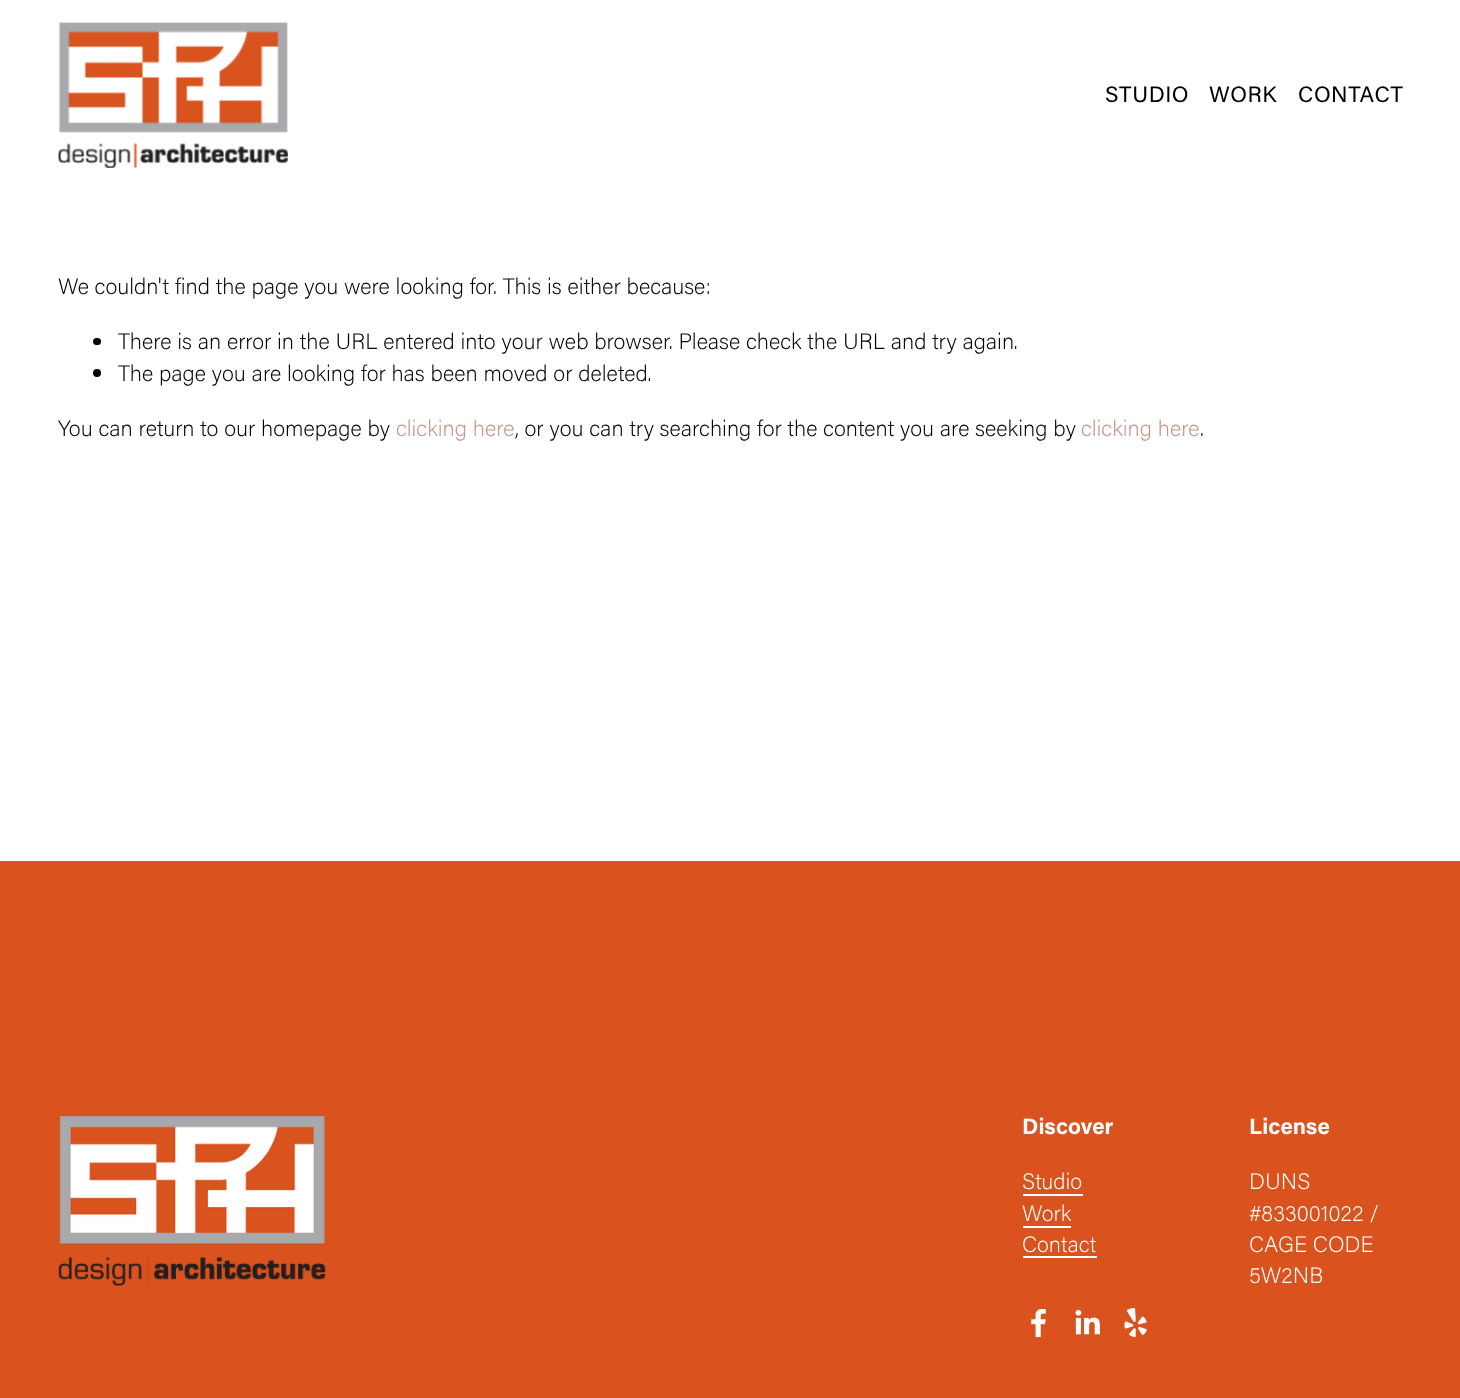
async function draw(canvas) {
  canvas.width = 1460;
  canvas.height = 1398;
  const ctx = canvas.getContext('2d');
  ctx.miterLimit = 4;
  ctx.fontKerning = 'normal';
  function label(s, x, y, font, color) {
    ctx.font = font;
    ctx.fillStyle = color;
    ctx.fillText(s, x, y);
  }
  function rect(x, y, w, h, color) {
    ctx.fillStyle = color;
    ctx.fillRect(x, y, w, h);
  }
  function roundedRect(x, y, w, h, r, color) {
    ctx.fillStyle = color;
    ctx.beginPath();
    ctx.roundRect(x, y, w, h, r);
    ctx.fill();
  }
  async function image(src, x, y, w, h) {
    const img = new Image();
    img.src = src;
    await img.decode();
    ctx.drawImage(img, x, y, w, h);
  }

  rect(0, 0, 1460, 1398, '#fff');
  await image('assets/img1.png', 58, 22, 230, 146);
  ctx.letterSpacing = '0.5px';
  label('STUDIO', 1105, 102, '22.25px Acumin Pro', '#000');
  label('WORK', 1209, 102, '22.25px Acumin Pro', '#000');
  label('CONTACT', 1298, 102, '22.25px Acumin Pro', '#000');
  ctx.letterSpacing = '0px';
  label('We couldn\'t find the page you were looking for. This is either because:', 58, 294, '200 22.25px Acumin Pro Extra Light', '#000');
  roundedRect(93, 338, 8, 7, 3.5, '#000');
  label('There is an error in the URL entered into your web browser. Please check the URL and try again.', 118, 349, '200 22.25px Acumin Pro Extra Light', '#000');
  ctx.beginPath();
  ctx.arc(97, 373, 4, 0, 2 * Math.PI);
  ctx.fill();
  label('The page you are looking for has been moved or deleted.', 118, 381, '200 22.25px Acumin Pro Extra Light', '#000');
  label('You can return to our homepage by', 58, 436, '200 22.25px Acumin Pro Extra Light', '#000');
  label('clicking here', 396, 436, '200 22.25px Acumin Pro Extra Light', '#c79288');
  label(', or you can try searching for the content you are seeking by', 515, 436, '200 22.25px Acumin Pro Extra Light', '#000');
  label('clicking here', 1081, 436, '200 22.25px Acumin Pro Extra Light', '#c79288');
  label('.', 1200, 436, '200 22.25px Acumin Pro Extra Light', '#000');
  rect(0, 861, 1460, 537, '#da531e');
  await image('assets/img2.png', 58, 1116, 268, 170);
  label('Discover', 1022, 1134, 'bold 22.25px Acumin Pro', '#fff');
  label('Studio', 1022, 1189, '200 22.25px Acumin Pro Extra Light', '#fff');
  rect(1023, 1194, 60, 2, '#fff');
  label('Work', 1022, 1221, '200 22.25px Acumin Pro Extra Light', '#fff');
  rect(1023, 1226, 48, 2, '#fff');
  label('Contact', 1022, 1252, '200 22.25px Acumin Pro Extra Light', '#fff');
  rect(1023, 1256, 74, 2, '#fff');
  label('License', 1249, 1134, 'bold 22.25px Acumin Pro', '#fff');
  label('DUNS', 1249, 1189, '200 22.25px Acumin Pro Extra Light', '#fff');
  label('#833001022 /', 1249, 1221, '200 22.25px Acumin Pro Extra Light', '#fff');
  label('CAGE CODE', 1249, 1252, '200 22.25px Acumin Pro Extra Light', '#fff');
  label('5W2NB', 1249, 1283, '200 22.25px Acumin Pro Extra Light', '#fff');
  await image('assets/img3.png', 1031, 1308, 15, 30);
  await image('assets/img4.png', 1075, 1309, 25, 26);
  await image('assets/img5.png', 1124, 1308, 23, 29);
}

draw(document.querySelector('canvas'));
